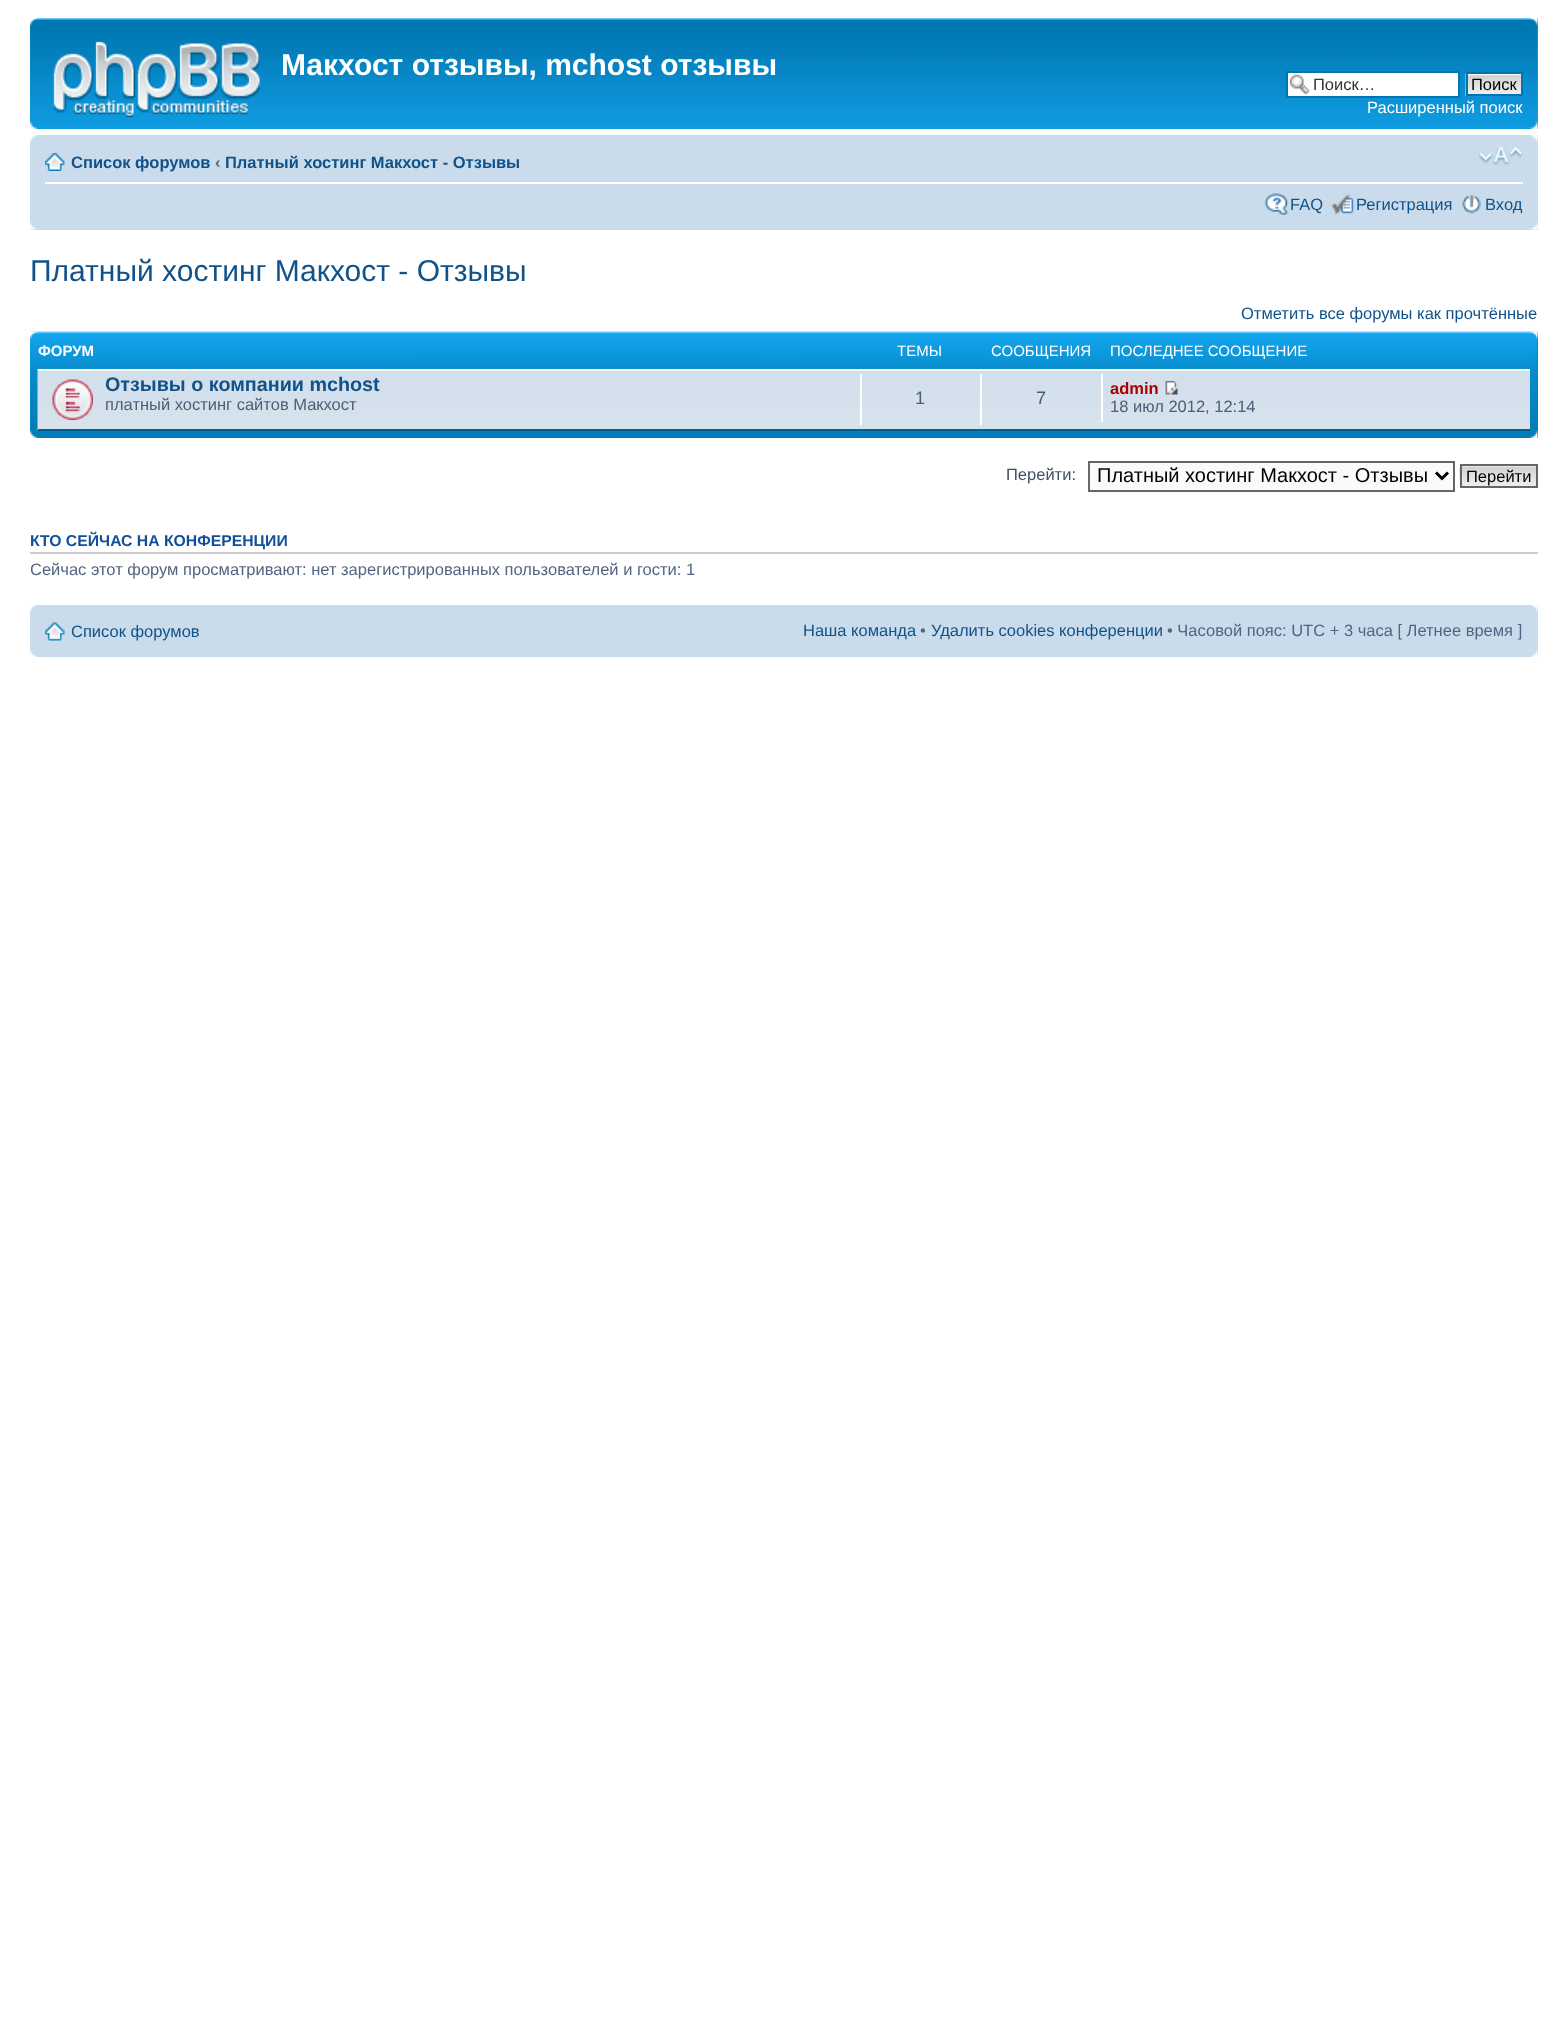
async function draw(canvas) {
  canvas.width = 1567;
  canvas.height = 2018;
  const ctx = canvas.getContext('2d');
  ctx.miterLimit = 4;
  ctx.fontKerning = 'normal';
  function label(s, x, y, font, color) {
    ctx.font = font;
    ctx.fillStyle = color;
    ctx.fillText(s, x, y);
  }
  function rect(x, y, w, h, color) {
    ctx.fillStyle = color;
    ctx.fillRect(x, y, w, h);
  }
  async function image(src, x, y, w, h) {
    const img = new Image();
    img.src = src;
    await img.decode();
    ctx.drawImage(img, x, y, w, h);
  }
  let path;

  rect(0, 0, 1567, 2018, '#fff');
  rect(1537, 18, 1, 111, '#12a3eb');
  await image('assets/img1.png', 30, 18, 1508, 111);
  await image('assets/img2.png', 30, 18, 8, 8);
  await image('assets/img3.png', 1529, 18, 9, 8);
  await image('assets/img4.png', 53, 41, 207, 77);
  label('Макхост отзывы, mchost отзывы', 281, 75, 'bold 30px Liberation Sans', '#fff');
  rect(1288, 73, 170, 23, '#fff');
  await image('assets/img5.png', 1289, 74, 21, 21);
  ctx.strokeStyle = '#0075b0';
  ctx.lineWidth = 2;
  ctx.strokeRect(1287, 72, 172, 25);
  label('Поиск…', 1313, 90, '16.5px Liberation Sans', '#333');
  await image('assets/img6.png', 1465, 73, 56, 23);
  ctx.strokeRect(1467, 73, 55, 22);
  label('Поиск', 1471, 90, '16.5px Liberation Sans', '#000');
  label('Расширенный поиск', 1367, 113, '16.5px Liberation Sans', '#fff');
  await image('assets/img7.png', 30, 121, 8, 8);
  await image('assets/img8.png', 1529, 121, 9, 8);
  rect(30, 135, 1508, 95, '#cadceb');
  await image('assets/img9.png', 30, 135, 8, 8);
  await image('assets/img10.png', 1530, 135, 8, 8);
  rect(45, 182, 1478, 2, '#fff');
  await image('assets/img11.png', 45, 153, 20, 18);
  label('Список форумов', 71, 168, 'bold 16.5px Liberation Sans', '#105289');
  label('‹', 215, 168, 'bold 16.5px Liberation Sans', '#536482');
  label('Платный хостинг Макхост - Отзывы', 225, 168, 'bold 16.5px Liberation Sans', '#105289');
  await image('assets/img12.png', 1479, 146, 44, 20);
  await image('assets/img13.png', 1264, 193, 25, 22);
  label('FAQ', 1290, 210, '16.5px Liberation Sans', '#105289');
  await image('assets/img14.png', 1331, 194, 23, 21);
  label('Регистрация', 1356, 210, '16.5px Liberation Sans', '#105289');
  await image('assets/img15.png', 1462, 194, 19, 20);
  label('Вход', 1485, 210, '16.5px Liberation Sans', '#105289');
  await image('assets/img16.png', 30, 222, 8, 8);
  await image('assets/img17.png', 1530, 222, 8, 8);
  label('Платный хостинг Макхост - Отзывы', 30, 281, '30px Liberation Sans', '#105289');
  label('Отметить все форумы как прочтённые', 1241, 319, '16.5px Liberation Sans', '#105289');
  rect(1537, 332, 1, 106, '#0076b1');
  await image('assets/img18.png', 30, 331, 1508, 107);
  await image('assets/img19.png', 30, 331, 8, 8);
  await image('assets/img20.png', 1529, 331, 9, 8);
  label('ФОРУМ', 38, 356, 'bold 15px Liberation Sans', '#fff');
  label('ТЕМЫ', 897, 356, '15px Liberation Sans', '#fff');
  label('СООБЩЕНИЯ', 991, 356, '15px Liberation Sans', '#fff');
  label('ПОСЛЕДНЕЕ СООБЩЕНИЕ', 1110, 356, '15px Liberation Sans', '#fff');
  await image('assets/img21.png', 37, 369, 1493, 62);
  rect(38, 369, 1492, 2, '#fff');
  rect(38, 429, 1492, 2, '#00608f');
  await image('assets/img22.png', 52, 379, 41, 41);
  label('Отзывы о компании mchost', 105, 391, 'bold 19.75px Liberation Sans', '#105289');
  label('платный хостинг сайтов Макхост', 105, 410, '16.5px Liberation Sans', '#4c5d77');
  rect(860, 374, 2, 51, '#fff');
  label('1', 915, 404, '18px Liberation Sans', '#4c5d77');
  rect(980, 374, 2, 51, '#fff');
  label('7', 1036, 404, '18px Liberation Sans', '#4c5d77');
  rect(1101, 374, 2, 48, '#fff');
  label('admin', 1110, 394, 'bold 16.5px Liberation Sans', '#a00');
  await image('assets/img23.png', 1165, 381, 13, 14);
  label('18 июл 2012, 12:14', 1110, 412, '16.5px Liberation Sans', '#4c5d77');
  await image('assets/img24.png', 30, 430, 8, 8);
  await image('assets/img25.png', 1529, 430, 9, 8);
  label('Перейти:', 1006, 480, '16.5px Liberation Sans', '#425067');
  ctx.fillStyle = '#fafafa';
  ctx.beginPath();
  ctx.rect(1089, 462, 365, 29);
  ctx.fill();
  ctx.strokeStyle = '#666';
  ctx.stroke();
  path = new Path2D('M1436 472.5L1442 478.5L1448 472.5');
  ctx.strokeStyle = '#000';
  ctx.lineWidth = 3;
  ctx.stroke(path);
  label('Платный хостинг Макхост - Отзывы', 1097, 482, '20px Liberation Sans', '#000');
  await image('assets/img26.png', 1459, 465, 77, 23);
  ctx.strokeStyle = '#666';
  ctx.lineWidth = 2;
  ctx.strokeRect(1461, 465, 76, 22);
  label('Перейти', 1466, 482, '16.5px Liberation Sans', '#000');
  rect(30, 552, 1508, 2, '#ccc');
  label('КТО СЕЙЧАС НА КОНФЕРЕНЦИИ', 30, 546, 'bold 15.75px Liberation Sans', '#115098');
  label('Сейчас этот форум просматривают: нет зарегистрированных пользователей и гости: 1', 30, 575, '16.5px Liberation Sans', '#536482');
  rect(30, 605, 1508, 52, '#cadceb');
  await image('assets/img27.png', 30, 605, 8, 7);
  await image('assets/img28.png', 1530, 605, 8, 7);
  await image('assets/img29.png', 45, 622, 20, 19);
  label('Список форумов', 71, 637, '16.5px Liberation Sans', '#105289');
  label('Наша команда', 803, 636, '16.5px Liberation Sans', '#105289');
  label('•', 920, 636, '16.5px Liberation Sans', '#536482');
  label('Удалить cookies конференции', 931, 636, '16.5px Liberation Sans', '#105289');
  label('• Часовой пояс: UTC + 3 часа [ Летнее время ]', 1167, 636, '16.5px Liberation Sans', '#536482');
  await image('assets/img30.png', 30, 649, 8, 8);
  await image('assets/img31.png', 1530, 649, 8, 8);
}

draw(document.querySelector('canvas'));
